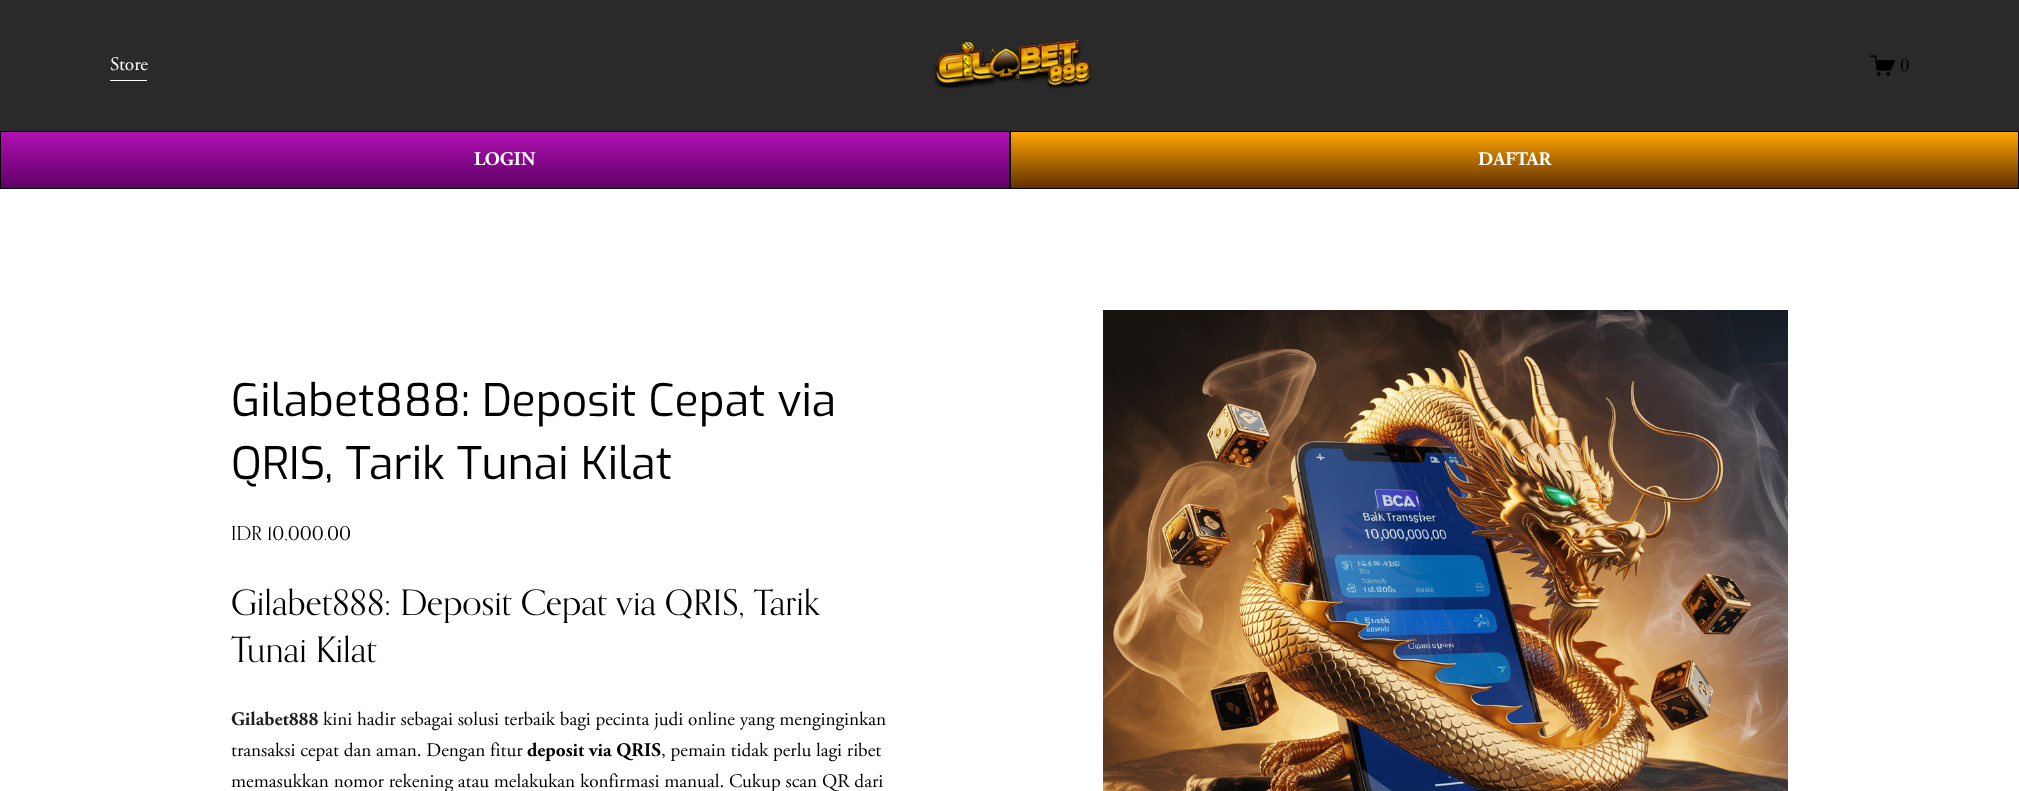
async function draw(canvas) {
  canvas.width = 2019;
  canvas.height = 791;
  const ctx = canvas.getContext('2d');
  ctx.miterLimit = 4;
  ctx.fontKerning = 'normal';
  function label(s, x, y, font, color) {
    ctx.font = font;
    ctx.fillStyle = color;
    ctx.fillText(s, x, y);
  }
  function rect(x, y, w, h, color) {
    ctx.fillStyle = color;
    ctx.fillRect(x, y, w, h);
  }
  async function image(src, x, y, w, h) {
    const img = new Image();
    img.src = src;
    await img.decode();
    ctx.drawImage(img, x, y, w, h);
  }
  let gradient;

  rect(0, 0, 2019, 791, '#fff');
  rect(0, 0, 2019, 131, '#2a2a2a');
  rect(110, 80, 37, 1, '#fff');
  label('Store', 110, 70, '19.2px Adobe Garamond', '#fff');
  await image('assets/img1.png', 934, 40, 157, 49);
  await image('assets/img2.png', 1870, 55, 25, 21);
  label('0', 1900, 71, '19.2px Adobe Garamond', '#000');
  gradient = ctx.createLinearGradient(505, 132, 505, 188);
  gradient.addColorStop(0, '#b110b1');
  gradient.addColorStop(1, '#5e0066');
  ctx.fillStyle = gradient;
  ctx.fillRect(1, 132, 1008, 56);
  ctx.strokeStyle = '#000';
  ctx.strokeRect(0.5, 131.5, 1009, 57);
  label('LOGIN', 474, 165, 'bold 19.2px Adobe Garamond', '#fff');
  gradient = ctx.createLinearGradient(1515, 132, 1515, 188);
  gradient.addColorStop(0, '#ffa600');
  gradient.addColorStop(1, '#622f00');
  ctx.fillStyle = gradient;
  ctx.fillRect(1011, 132, 1007, 56);
  ctx.strokeRect(1010.5, 131.5, 1008, 57);
  label('DAFTAR', 1478, 165, 'bold 19.2px Adobe Garamond', '#fff');
  label('Gilabet888: Deposit Cepat via', 231, 416, '44.75px Exo', '#000');
  label('QRIS, Tarik Tunai Kilat', 231, 479, '44.75px Exo', '#000');
  label('IDR 10,000.00', 231, 540, '19.2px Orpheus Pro', '#000');
  label('Gilabet888: Deposit Cepat via QRIS, Tarik', 231, 615, '35.25px Orpheus Pro', '#000');
  label('Tunai Kilat', 231, 662, '35.25px Orpheus Pro', '#000');
  label('Gilabet888', 231, 725, 'bold 19.2px Adobe Garamond', '#1f1f1f');
  label('kini hadir sebagai solusi terbaik bagi pecinta judi online yang menginginkan', 323, 725, '19.2px Adobe Garamond', '#000');
  label('transaksi cepat dan aman. Dengan fitur', 231, 756, '19.2px Adobe Garamond', '#000');
  label('deposit via QRIS', 527, 756, 'bold 19.2px Adobe Garamond', '#000');
  label(', pemain tidak perlu lagi ribet', 661, 756, '19.2px Adobe Garamond', '#000');
  label('memasukkan nomor rekening atau melakukan konfirmasi manual. Cukup scan QR dari', 231, 787, '19.2px Adobe Garamond', '#000');
  await image('assets/img3.png', 1103, 310, 685, 481);
}

draw(document.querySelector('canvas'));
